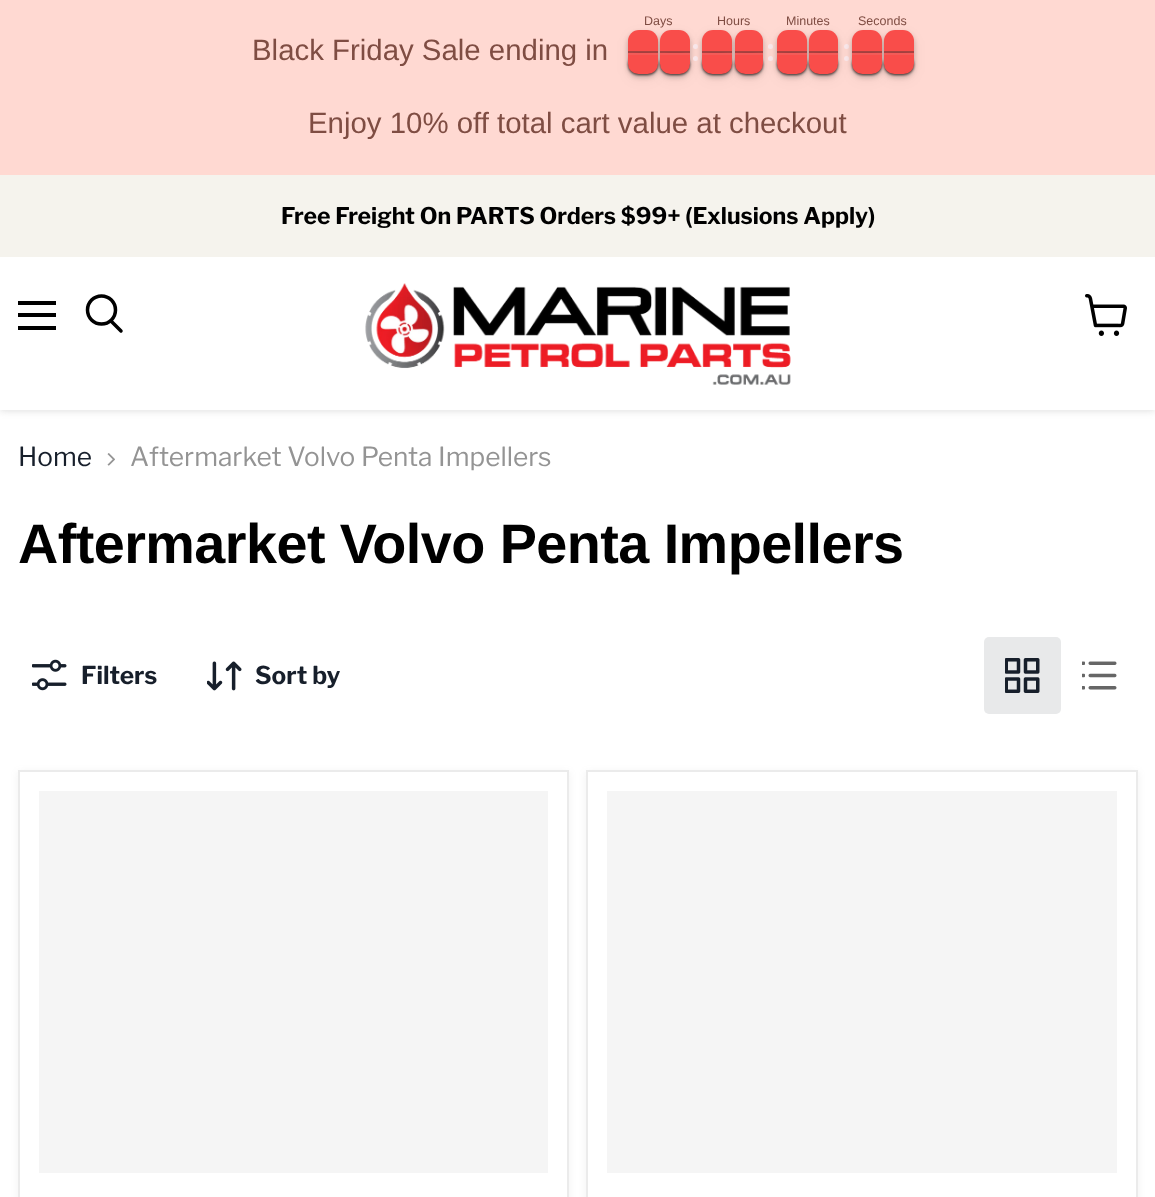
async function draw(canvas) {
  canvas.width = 1155;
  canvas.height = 1197;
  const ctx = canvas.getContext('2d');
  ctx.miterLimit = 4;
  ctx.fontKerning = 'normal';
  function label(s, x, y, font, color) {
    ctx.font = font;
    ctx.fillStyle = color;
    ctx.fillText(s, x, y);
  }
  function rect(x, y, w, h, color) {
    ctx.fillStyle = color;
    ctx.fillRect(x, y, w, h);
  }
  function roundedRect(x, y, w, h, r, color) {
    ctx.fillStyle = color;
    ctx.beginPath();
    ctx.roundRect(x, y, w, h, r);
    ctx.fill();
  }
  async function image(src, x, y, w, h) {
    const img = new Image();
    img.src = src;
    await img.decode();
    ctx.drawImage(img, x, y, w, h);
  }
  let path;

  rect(0, 0, 1155, 1197, '#fff');
  rect(0, 0, 1155, 175, '#ffd9d2');
  ctx.fillStyle = '#0000000d';
  ctx.filter = 'blur(7px)';
  ctx.beginPath();
  ctx.roundRect(628, 35, 30, 44, 11);
  ctx.fill();
  ctx.filter = 'none';
  ctx.fillStyle = '#0000003d';
  ctx.filter = 'blur(2.5px)';
  ctx.beginPath();
  ctx.roundRect(628, 33, 30, 44, 11);
  ctx.fill();
  ctx.filter = 'none';
  ctx.fillStyle = '#00000066';
  ctx.filter = 'blur(1px)';
  ctx.beginPath();
  ctx.roundRect(628, 54, 30, 21, 10.5);
  ctx.fill();
  ctx.filter = 'none';
  ctx.fillStyle = '#0000000d';
  ctx.filter = 'blur(7px)';
  ctx.beginPath();
  ctx.roundRect(660, 35, 30, 44, 11);
  ctx.fill();
  ctx.filter = 'none';
  ctx.fillStyle = '#0000003d';
  ctx.filter = 'blur(2.5px)';
  ctx.beginPath();
  ctx.roundRect(660, 33, 30, 44, 11);
  ctx.fill();
  ctx.filter = 'none';
  ctx.fillStyle = '#fae8eb';
  ctx.beginPath();
  ctx.arc(695.5, 58.5, 2.5, 0, 2 * Math.PI);
  ctx.fill();
  ctx.fillStyle = '#00000066';
  ctx.filter = 'blur(1px)';
  ctx.beginPath();
  ctx.roundRect(660, 54, 30, 21, 10.5);
  ctx.fill();
  ctx.filter = 'none';
  ctx.fillStyle = '#f94d4a';
  ctx.beginPath();
  ctx.roundRect(628, 30, 30, 23, [11, 11, 0, 0]);
  ctx.fill();
  rect(628, 51, 30, 2, '#33333366');
  ctx.fillStyle = '#00000066';
  ctx.filter = 'blur(1px)';
  ctx.beginPath();
  ctx.roundRect(628, 54, 30, 21, 10.5);
  ctx.fill();
  ctx.filter = 'none';
  ctx.fillStyle = '#f94d4a';
  ctx.beginPath();
  ctx.roundRect(628, 53, 30, 21, [0, 0, 10.5, 10.5]);
  ctx.fill();
  rect(628, 53, 30, 2, '#cccccc1a');
  ctx.fillStyle = '#fae8eb';
  ctx.beginPath();
  ctx.arc(695.5, 46.5, 2.5, 0, 2 * Math.PI);
  ctx.fill();
  ctx.fillStyle = '#0000000d';
  ctx.filter = 'blur(7px)';
  ctx.beginPath();
  ctx.roundRect(702, 35, 30, 44, 11);
  ctx.fill();
  ctx.filter = 'none';
  ctx.fillStyle = '#f94d4a';
  ctx.beginPath();
  ctx.roundRect(660, 30, 30, 23, [11, 11, 0, 0]);
  ctx.fill();
  rect(660, 51, 30, 2, '#33333366');
  ctx.fillStyle = '#00000066';
  ctx.filter = 'blur(1px)';
  ctx.beginPath();
  ctx.roundRect(660, 54, 30, 21, 10.5);
  ctx.fill();
  ctx.filter = 'none';
  ctx.fillStyle = '#f94d4a';
  ctx.beginPath();
  ctx.roundRect(660, 53, 30, 21, [0, 0, 10.5, 10.5]);
  ctx.fill();
  rect(660, 53, 30, 2, '#cccccc1a');
  label('Days', 644, 25, '12.5px Liberation Sans', '#7f4d43');
  ctx.fillStyle = '#0000003d';
  ctx.filter = 'blur(2.5px)';
  ctx.beginPath();
  ctx.roundRect(702, 33, 30, 44, 11);
  ctx.fill();
  ctx.filter = 'none';
  ctx.fillStyle = '#00000066';
  ctx.filter = 'blur(1px)';
  ctx.beginPath();
  ctx.roundRect(702, 54, 30, 21, 10.5);
  ctx.fill();
  ctx.filter = 'none';
  ctx.fillStyle = '#0000000d';
  ctx.filter = 'blur(7px)';
  ctx.beginPath();
  ctx.roundRect(735, 35, 28, 44, 11);
  ctx.fill();
  ctx.filter = 'none';
  ctx.fillStyle = '#0000003d';
  ctx.filter = 'blur(2.5px)';
  ctx.beginPath();
  ctx.roundRect(735, 33, 28, 44, 11);
  ctx.fill();
  ctx.filter = 'none';
  ctx.fillStyle = '#00000066';
  ctx.filter = 'blur(1px)';
  ctx.beginPath();
  ctx.roundRect(735, 54, 28, 21, 10.5);
  ctx.fill();
  ctx.filter = 'none';
  ctx.fillStyle = '#f94d4a';
  ctx.beginPath();
  ctx.roundRect(702, 30, 30, 23, [11, 11, 0, 0]);
  ctx.fill();
  rect(702, 51, 30, 2, '#33333366');
  ctx.fillStyle = '#00000066';
  ctx.filter = 'blur(1px)';
  ctx.beginPath();
  ctx.roundRect(702, 54, 30, 21, 10.5);
  ctx.fill();
  ctx.filter = 'none';
  ctx.fillStyle = '#f94d4a';
  ctx.beginPath();
  ctx.roundRect(702, 53, 30, 21, [0, 0, 10.5, 10.5]);
  ctx.fill();
  rect(702, 53, 30, 2, '#cccccc1a');
  ctx.fillStyle = '#fae8eb';
  ctx.beginPath();
  ctx.arc(770.5, 46.5, 2.5, 0, 2 * Math.PI);
  ctx.fill();
  ctx.beginPath();
  ctx.arc(770.5, 58.5, 2.5, 0, 2 * Math.PI);
  ctx.fill();
  ctx.fillStyle = '#0000000d';
  ctx.filter = 'blur(7px)';
  ctx.beginPath();
  ctx.roundRect(777, 35, 30, 44, 11);
  ctx.fill();
  ctx.filter = 'none';
  ctx.fillStyle = '#f94d4a';
  ctx.beginPath();
  ctx.roundRect(735, 30, 28, 23, [11, 11, 0, 0]);
  ctx.fill();
  rect(735, 51, 28, 2, '#33333366');
  ctx.fillStyle = '#00000066';
  ctx.filter = 'blur(1px)';
  ctx.beginPath();
  ctx.roundRect(735, 54, 28, 21, 10.5);
  ctx.fill();
  ctx.filter = 'none';
  ctx.fillStyle = '#f94d4a';
  ctx.beginPath();
  ctx.roundRect(735, 53, 28, 21, [0, 0, 10.5, 10.5]);
  ctx.fill();
  rect(735, 53, 28, 2, '#cccccc1a');
  label('Hours', 717, 25, '12.5px Liberation Sans', '#7f4d43');
  ctx.fillStyle = '#0000003d';
  ctx.filter = 'blur(2.5px)';
  ctx.beginPath();
  ctx.roundRect(777, 33, 30, 44, 11);
  ctx.fill();
  ctx.filter = 'none';
  ctx.fillStyle = '#00000066';
  ctx.filter = 'blur(1px)';
  ctx.beginPath();
  ctx.roundRect(777, 54, 30, 21, 10.5);
  ctx.fill();
  ctx.filter = 'none';
  ctx.fillStyle = '#0000000d';
  ctx.filter = 'blur(7px)';
  ctx.beginPath();
  ctx.roundRect(809, 35, 29, 44, 11);
  ctx.fill();
  ctx.filter = 'none';
  ctx.fillStyle = '#0000003d';
  ctx.filter = 'blur(2.5px)';
  ctx.beginPath();
  ctx.roundRect(809, 33, 29, 44, 11);
  ctx.fill();
  ctx.filter = 'none';
  ctx.fillStyle = '#00000066';
  ctx.filter = 'blur(1px)';
  ctx.beginPath();
  ctx.roundRect(809, 54, 29, 21, 10.5);
  ctx.fill();
  ctx.filter = 'none';
  ctx.fillStyle = '#f94d4a';
  ctx.beginPath();
  ctx.roundRect(777, 30, 30, 23, [11, 11, 0, 0]);
  ctx.fill();
  rect(777, 51, 30, 2, '#33333366');
  ctx.fillStyle = '#00000066';
  ctx.filter = 'blur(1px)';
  ctx.beginPath();
  ctx.roundRect(777, 54, 30, 21, 10.5);
  ctx.fill();
  ctx.filter = 'none';
  ctx.fillStyle = '#f94d4a';
  ctx.beginPath();
  ctx.roundRect(777, 53, 30, 21, [0, 0, 10.5, 10.5]);
  ctx.fill();
  rect(777, 53, 30, 2, '#cccccc1a');
  ctx.fillStyle = '#fae8eb';
  ctx.beginPath();
  ctx.arc(846.5, 46.5, 2.5, 0, 2 * Math.PI);
  ctx.fill();
  ctx.beginPath();
  ctx.arc(846.5, 58.5, 2.5, 0, 2 * Math.PI);
  ctx.fill();
  ctx.fillStyle = '#0000000d';
  ctx.filter = 'blur(7px)';
  ctx.beginPath();
  ctx.roundRect(852, 35, 30, 44, 11);
  ctx.fill();
  ctx.filter = 'none';
  ctx.fillStyle = '#f94d4a';
  ctx.beginPath();
  ctx.roundRect(809, 30, 29, 23, [11, 11, 0, 0]);
  ctx.fill();
  rect(809, 51, 29, 2, '#33333366');
  ctx.fillStyle = '#00000066';
  ctx.filter = 'blur(1px)';
  ctx.beginPath();
  ctx.roundRect(809, 54, 29, 21, 10.5);
  ctx.fill();
  ctx.filter = 'none';
  ctx.fillStyle = '#f94d4a';
  ctx.beginPath();
  ctx.roundRect(809, 53, 29, 21, [0, 0, 10.5, 10.5]);
  ctx.fill();
  rect(809, 53, 29, 2, '#cccccc1a');
  label('Minutes', 786, 25, '12.5px Liberation Sans', '#7f4d43');
  ctx.fillStyle = '#0000003d';
  ctx.filter = 'blur(2.5px)';
  ctx.beginPath();
  ctx.roundRect(852, 33, 30, 44, 11);
  ctx.fill();
  ctx.filter = 'none';
  ctx.fillStyle = '#00000066';
  ctx.filter = 'blur(1px)';
  ctx.beginPath();
  ctx.roundRect(852, 54, 30, 21, 10.5);
  ctx.fill();
  ctx.filter = 'none';
  ctx.fillStyle = '#0000000d';
  ctx.filter = 'blur(7px)';
  ctx.beginPath();
  ctx.roundRect(884, 35, 30, 44, 11);
  ctx.fill();
  ctx.filter = 'none';
  ctx.fillStyle = '#0000003d';
  ctx.filter = 'blur(2.5px)';
  ctx.beginPath();
  ctx.roundRect(884, 33, 30, 44, 11);
  ctx.fill();
  ctx.filter = 'none';
  ctx.fillStyle = '#00000066';
  ctx.filter = 'blur(1px)';
  ctx.beginPath();
  ctx.roundRect(884, 54, 30, 21, 10.5);
  ctx.fill();
  ctx.filter = 'none';
  ctx.fillStyle = '#f94d4a';
  ctx.beginPath();
  ctx.roundRect(852, 30, 30, 23, [11, 11, 0, 0]);
  ctx.fill();
  rect(852, 51, 30, 2, '#33333366');
  ctx.fillStyle = '#00000066';
  ctx.filter = 'blur(1px)';
  ctx.beginPath();
  ctx.roundRect(852, 54, 30, 21, 10.5);
  ctx.fill();
  ctx.filter = 'none';
  ctx.fillStyle = '#f94d4a';
  ctx.beginPath();
  ctx.roundRect(852, 53, 30, 21, [0, 0, 10.5, 10.5]);
  ctx.fill();
  rect(852, 53, 30, 2, '#cccccc1a');
  ctx.fillStyle = '#f94d4a';
  ctx.beginPath();
  ctx.roundRect(884, 30, 30, 23, [11, 11, 0, 0]);
  ctx.fill();
  rect(884, 51, 30, 2, '#33333366');
  ctx.fillStyle = '#00000066';
  ctx.filter = 'blur(1px)';
  ctx.beginPath();
  ctx.roundRect(884, 54, 30, 21, 10.5);
  ctx.fill();
  ctx.filter = 'none';
  ctx.fillStyle = '#f94d4a';
  ctx.beginPath();
  ctx.roundRect(884, 53, 30, 21, [0, 0, 10.5, 10.5]);
  ctx.fill();
  rect(884, 53, 30, 2, '#cccccc1a');
  label('Seconds', 858, 25, '12.5px Liberation Sans', '#7f4d43');
  label('Black Friday Sale ending in', 252, 60, '29.4px Liberation Sans', '#7f4d43');
  label('Enjoy 10% off total cart value at checkout', 308, 133, '29.4px Liberation Sans', '#7f4d43');
  ctx.fillStyle = '#80808040';
  ctx.filter = 'blur(3.5px)';
  ctx.beginPath();
  ctx.rect(0, 259, 1155, 152);
  ctx.fill();
  ctx.filter = 'none';
  rect(0, 175, 1155, 82, '#f5f3ed');
  label('Free Freight On PARTS Orders $99+ (Exlusions Apply)', 281, 224, 'bold 23px Libre Franklin', '#000');
  rect(0, 257, 1155, 153, '#fff');
  rect(18, 301, 38, 4, '#000');
  rect(18, 313, 38, 4, '#000');
  rect(18, 326, 38, 4, '#000');
  path = new Path2D('M121 331L111 321');
  ctx.strokeStyle = '#000';
  ctx.lineWidth = 3.5;
  ctx.lineCap = 'round';
  ctx.stroke(path);
  ctx.beginPath();
  ctx.arc(101.5, 310, 14, 0, 2 * Math.PI);
  ctx.stroke();
  await image('assets/img1.png', 365, 283, 426, 102);
  await image('assets/img2.png', 1085, 294, 42, 42);
  label('Home', 18, 466, '26.25px Libre Franklin', '#171f2b');
  await image('assets/img3.png', 107, 453, 8, 13);
  label('Aftermarket Volvo Penta Impellers', 130, 466, '26.25px Libre Franklin', '#949494');
  ctx.letterSpacing = '-0.55px';
  label('Aftermarket Volvo Penta Impellers', 18, 563, 'bold 55.75px Arimo', '#000');
  await image('assets/img4.png', 32, 659, 35, 32);
  ctx.letterSpacing = '0px';
  label('Filters', 81, 684, 'bold 24.5px Libre Franklin', '#171f2b');
  await image('assets/img5.png', 207, 661, 35, 30);
  label('Sort by', 255, 684, 'bold 24.5px Libre Franklin', '#171f2b');
  roundedRect(984, 637, 77, 77, 5, '#e8e9ea');
  await image('assets/img6.png', 1005, 658, 35, 35);
  await image('assets/img7.png', 1082, 661, 35, 29);
  ctx.fillStyle = '#8080801c';
  ctx.filter = 'blur(3.5px)';
  ctx.beginPath();
  ctx.rect(18, 772, 551, 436);
  ctx.fill();
  ctx.filter = 'none';
  ctx.fillStyle = '#fff';
  ctx.beginPath();
  ctx.rect(19, 771, 549, 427);
  ctx.fill();
  ctx.strokeStyle = '#ebebeb';
  ctx.lineWidth = 2;
  ctx.stroke();
  rect(39, 791, 509, 382, '#f5f5f5');
  ctx.fillStyle = '#8080801c';
  ctx.filter = 'blur(3.5px)';
  ctx.beginPath();
  ctx.rect(586, 772, 552, 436);
  ctx.fill();
  ctx.filter = 'none';
  ctx.fillStyle = '#fff';
  ctx.beginPath();
  ctx.rect(587, 771, 550, 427);
  ctx.fill();
  ctx.stroke();
  rect(607, 791, 510, 382, '#f5f5f5');
}

draw(document.querySelector('canvas'));
